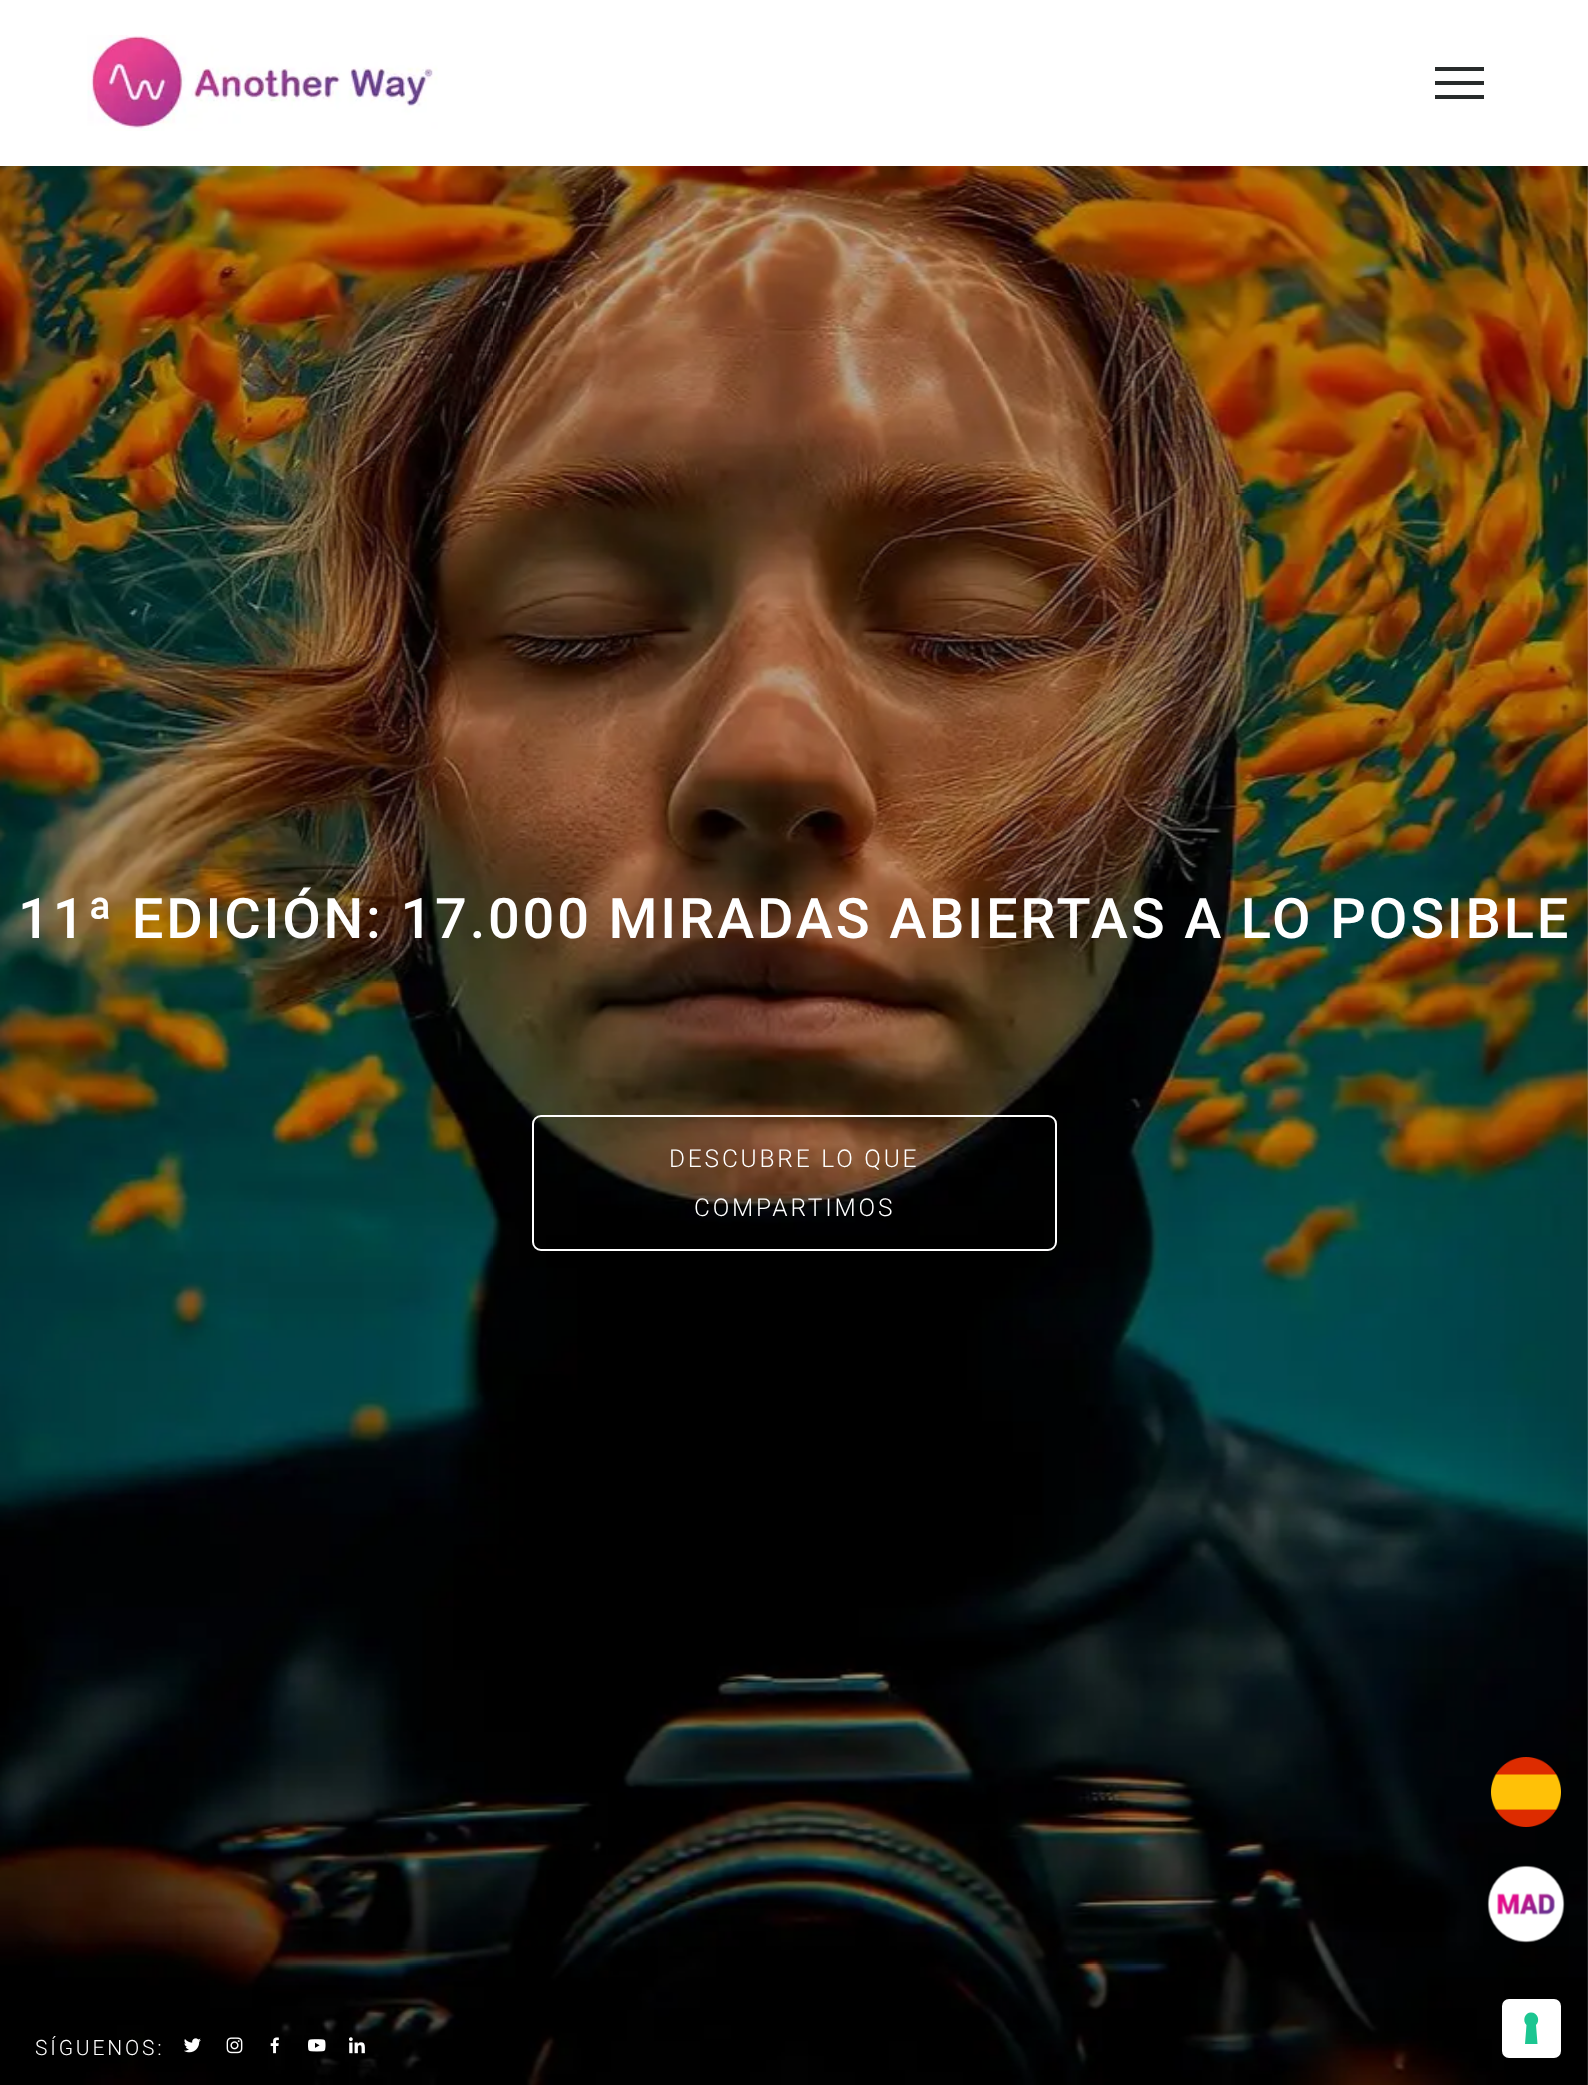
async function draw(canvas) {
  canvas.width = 1588;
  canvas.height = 2085;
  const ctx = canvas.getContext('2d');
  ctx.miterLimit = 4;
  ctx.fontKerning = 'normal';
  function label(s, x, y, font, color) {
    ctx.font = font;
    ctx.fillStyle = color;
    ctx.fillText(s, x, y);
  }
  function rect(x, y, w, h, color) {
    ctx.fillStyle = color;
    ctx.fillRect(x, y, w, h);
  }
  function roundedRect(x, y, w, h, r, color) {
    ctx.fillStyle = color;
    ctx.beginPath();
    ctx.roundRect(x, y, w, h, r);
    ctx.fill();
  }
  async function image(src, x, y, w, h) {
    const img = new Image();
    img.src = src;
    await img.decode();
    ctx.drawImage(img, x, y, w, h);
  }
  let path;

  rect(0, 0, 1588, 2085, '#fff');
  await image('assets/img1.png', 87, 35, 351, 96);
  rect(1435, 67, 49, 4, '#272b2b');
  rect(1435, 81, 49, 4, '#272b2b');
  rect(1435, 95, 49, 4, '#272b2b');
  await image('assets/img2.png', 0, 166, 1588, 1919);
  ctx.letterSpacing = '2.8px';
  label('11ª EDICIÓN: 17.000 MIRADAS ABIERTAS A LO POSIBLE', 18, 938, '500 56px Roboto', '#fff');
  ctx.beginPath();
  ctx.roundRect(533, 1116, 523, 134, 8);
  ctx.strokeStyle = '#fff';
  ctx.lineWidth = 2;
  ctx.stroke();
  label('DESCUBRE LO QUE', 669, 1167, '300 24.5px Roboto', '#fff');
  label('COMPARTIMOS', 694, 1216, '300 24.5px Roboto', '#fff');
  label('SÍGUENOS:', 35, 2055, '300 21px Roboto', '#fff');
  await image('assets/img3.png', 184, 2038, 17, 15);
  await image('assets/img4.png', 226, 2037, 17, 17);
  await image('assets/img5.png', 270, 2037, 9, 17);
  await image('assets/img6.png', 308, 2039, 18, 13);
  await image('assets/img7.png', 349, 2037, 16, 17);
  await image('assets/img8.png', 1491, 1757, 70, 70);
  await image('assets/img9.png', 1487, 1865, 78, 78);
  roundedRect(1502, 1999, 59, 59, 7, '#fff');
  ctx.fillStyle = '#1cc691';
  path = new Path2D('M1531 2012.5C1537.5 2012.5 1540.5 2020.5 1536 2025L1537.5 2044H1525L1526.5 2025C1522 2020.5 1525 2012.5 1531 2012.5Z');
  ctx.fill(path, 'evenodd');
}

draw(document.querySelector('canvas'));
